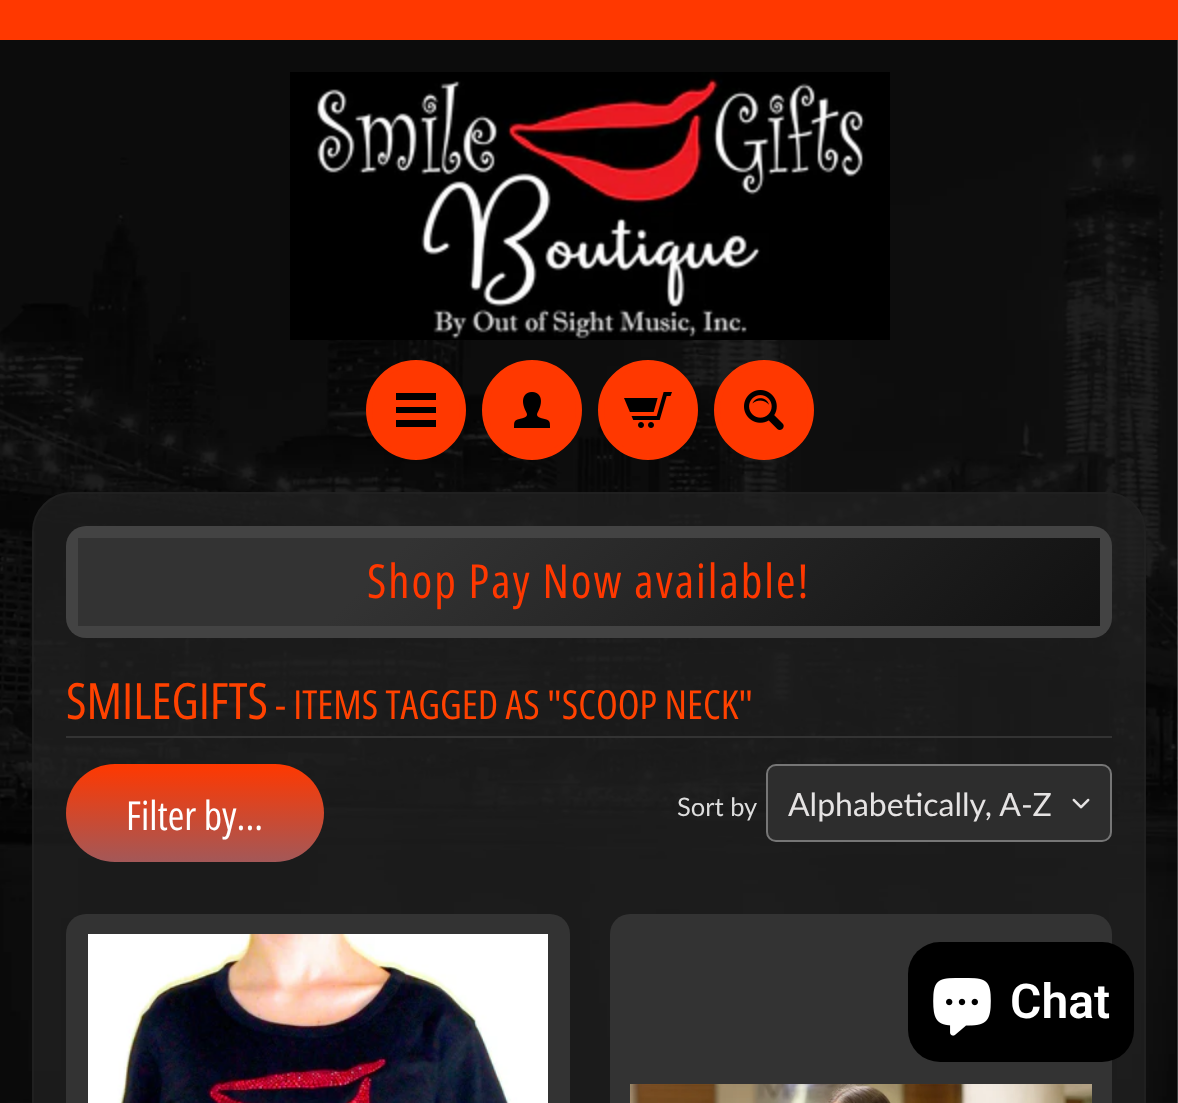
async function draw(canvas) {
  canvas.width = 1178;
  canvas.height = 1103;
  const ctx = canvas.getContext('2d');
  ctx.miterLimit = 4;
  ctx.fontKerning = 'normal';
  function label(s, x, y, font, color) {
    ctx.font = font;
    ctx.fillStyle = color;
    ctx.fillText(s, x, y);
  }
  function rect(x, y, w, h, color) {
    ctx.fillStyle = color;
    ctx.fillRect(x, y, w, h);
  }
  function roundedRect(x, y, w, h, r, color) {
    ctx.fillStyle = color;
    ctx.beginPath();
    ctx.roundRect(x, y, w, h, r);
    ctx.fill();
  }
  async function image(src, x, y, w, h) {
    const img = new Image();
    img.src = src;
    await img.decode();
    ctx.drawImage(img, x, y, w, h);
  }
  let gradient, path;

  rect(0, 0, 1178, 1103, '#fff');
  await image('assets/img1.png', 0, 40, 1178, 1063);
  rect(0, 0, 1178, 40, '#ff3800');
  await image('assets/img2.png', 290, 72, 600, 268);
  ctx.beginPath();
  ctx.arc(416, 410, 47, 0, 2 * Math.PI);
  ctx.fill();
  ctx.strokeStyle = '#ff3800';
  ctx.lineWidth = 6;
  ctx.stroke();
  ctx.fillStyle = '#000';
  path = new Path2D('M436 400H396V393H436ZM436 407H396V413H436ZM436 420H396V427H436Z');
  ctx.fill(path);
  ctx.fillStyle = '#ff3800';
  ctx.beginPath();
  ctx.arc(532, 410, 47, 0, 2 * Math.PI);
  ctx.fill();
  ctx.stroke();
  await image('assets/img3.png', 514, 392, 36, 36);
  ctx.beginPath();
  ctx.arc(648, 410, 47, 0, 2 * Math.PI);
  ctx.fill();
  ctx.stroke();
  await image('assets/img4.png', 624, 392, 48, 36);
  ctx.beginPath();
  ctx.arc(764, 410, 47, 0, 2 * Math.PI);
  ctx.fill();
  ctx.stroke();
  await image('assets/img5.png', 744, 390, 40, 40);
  roundedRect(32, 492, 1114, 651, 40, '#222222bf');
  ctx.beginPath();
  ctx.roundRect(33, 493, 1112, 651, 39);
  ctx.strokeStyle = '#222222b3';
  ctx.lineWidth = 2;
  ctx.stroke();
  roundedRect(66, 526, 1046, 112, 20, '#434343');
  gradient = ctx.createLinearGradient(312, 305, 867, 860);
  gradient.addColorStop(0.3, '#333');
  gradient.addColorStop(1, '#111');
  ctx.fillStyle = gradient;
  ctx.fillRect(78, 538, 1022, 88);
  ctx.letterSpacing = '2px';
  label('Shop Pay Now available!', 367, 598, '47.1px Open Sans Condensed', '#ff3800');
  rect(66, 736, 1046, 2, '#333');
  ctx.letterSpacing = '0px';
  label('SMILEGIFTS', 66, 719, '50px Open Sans Condensed', '#ff4200');
  label('- ITEMS TAGGED AS "SCOOP NECK"', 275, 719, '40px Open Sans Condensed', '#ff4200');
  gradient = ctx.createLinearGradient(195, 764, 195, 862);
  gradient.addColorStop(0, '#ff3800');
  gradient.addColorStop(1, '#a35858');
  ctx.fillStyle = gradient;
  ctx.beginPath();
  ctx.roundRect(66, 764, 258, 98, 49);
  ctx.fill();
  label('Filter by...', 126, 830, '40px Open Sans Condensed', '#fff');
  label('Sort by', 677, 816, '25.5px Lato', '#ddd');
  roundedRect(766, 764, 346, 78, 10, '#2d2d2d');
  await image('assets/img6.png', 1072, 798, 18, 11);
  ctx.beginPath();
  ctx.roundRect(767, 765, 344, 76, 9);
  ctx.strokeStyle = '#767676';
  ctx.stroke();
  label('Alphabetically, A-Z', 788, 816, '32px Lato', '#e5e3e3');
  roundedRect(66, 914, 504, 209, 20, '#333');
  await image('assets/img7.png', 88, 934, 460, 169);
  roundedRect(610, 914, 502, 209, 20, '#333');
  await image('assets/img8.png', 630, 1084, 462, 19);
  roundedRect(908, 942, 226, 120, 32, '#000');
  await image('assets/img9.png', 933, 978, 58, 58);
  label('Chat', 1010, 1018, '600 48px Roboto', '#fff');
}

draw(document.querySelector('canvas'));
